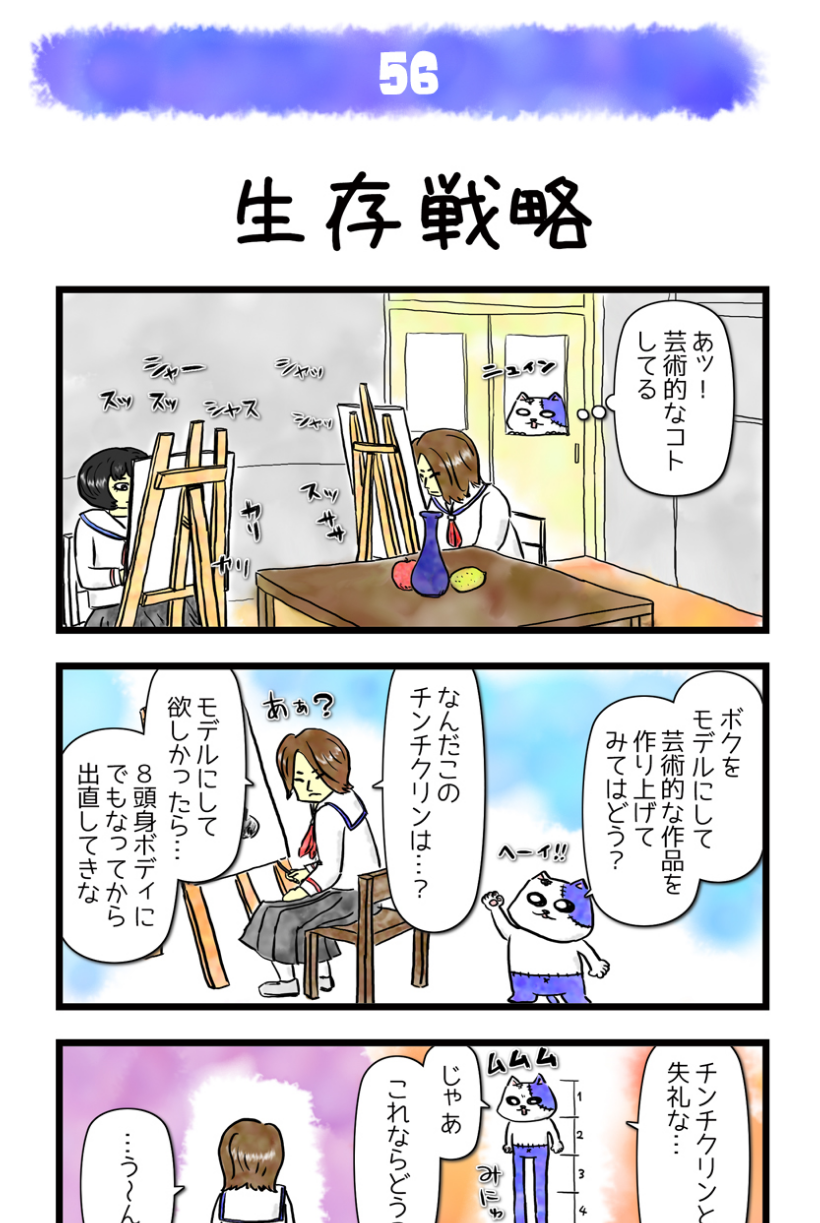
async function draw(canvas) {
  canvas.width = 820;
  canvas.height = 1223;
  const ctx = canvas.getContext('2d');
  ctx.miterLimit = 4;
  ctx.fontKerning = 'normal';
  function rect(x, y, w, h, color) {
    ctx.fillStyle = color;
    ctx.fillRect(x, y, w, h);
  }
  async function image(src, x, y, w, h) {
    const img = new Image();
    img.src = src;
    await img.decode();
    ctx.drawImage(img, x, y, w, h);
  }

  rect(0, 0, 820, 1223, '#fff');
  await image('assets/img1.png', 28, 20, 743, 1203);
}

draw(document.querySelector('canvas'));
